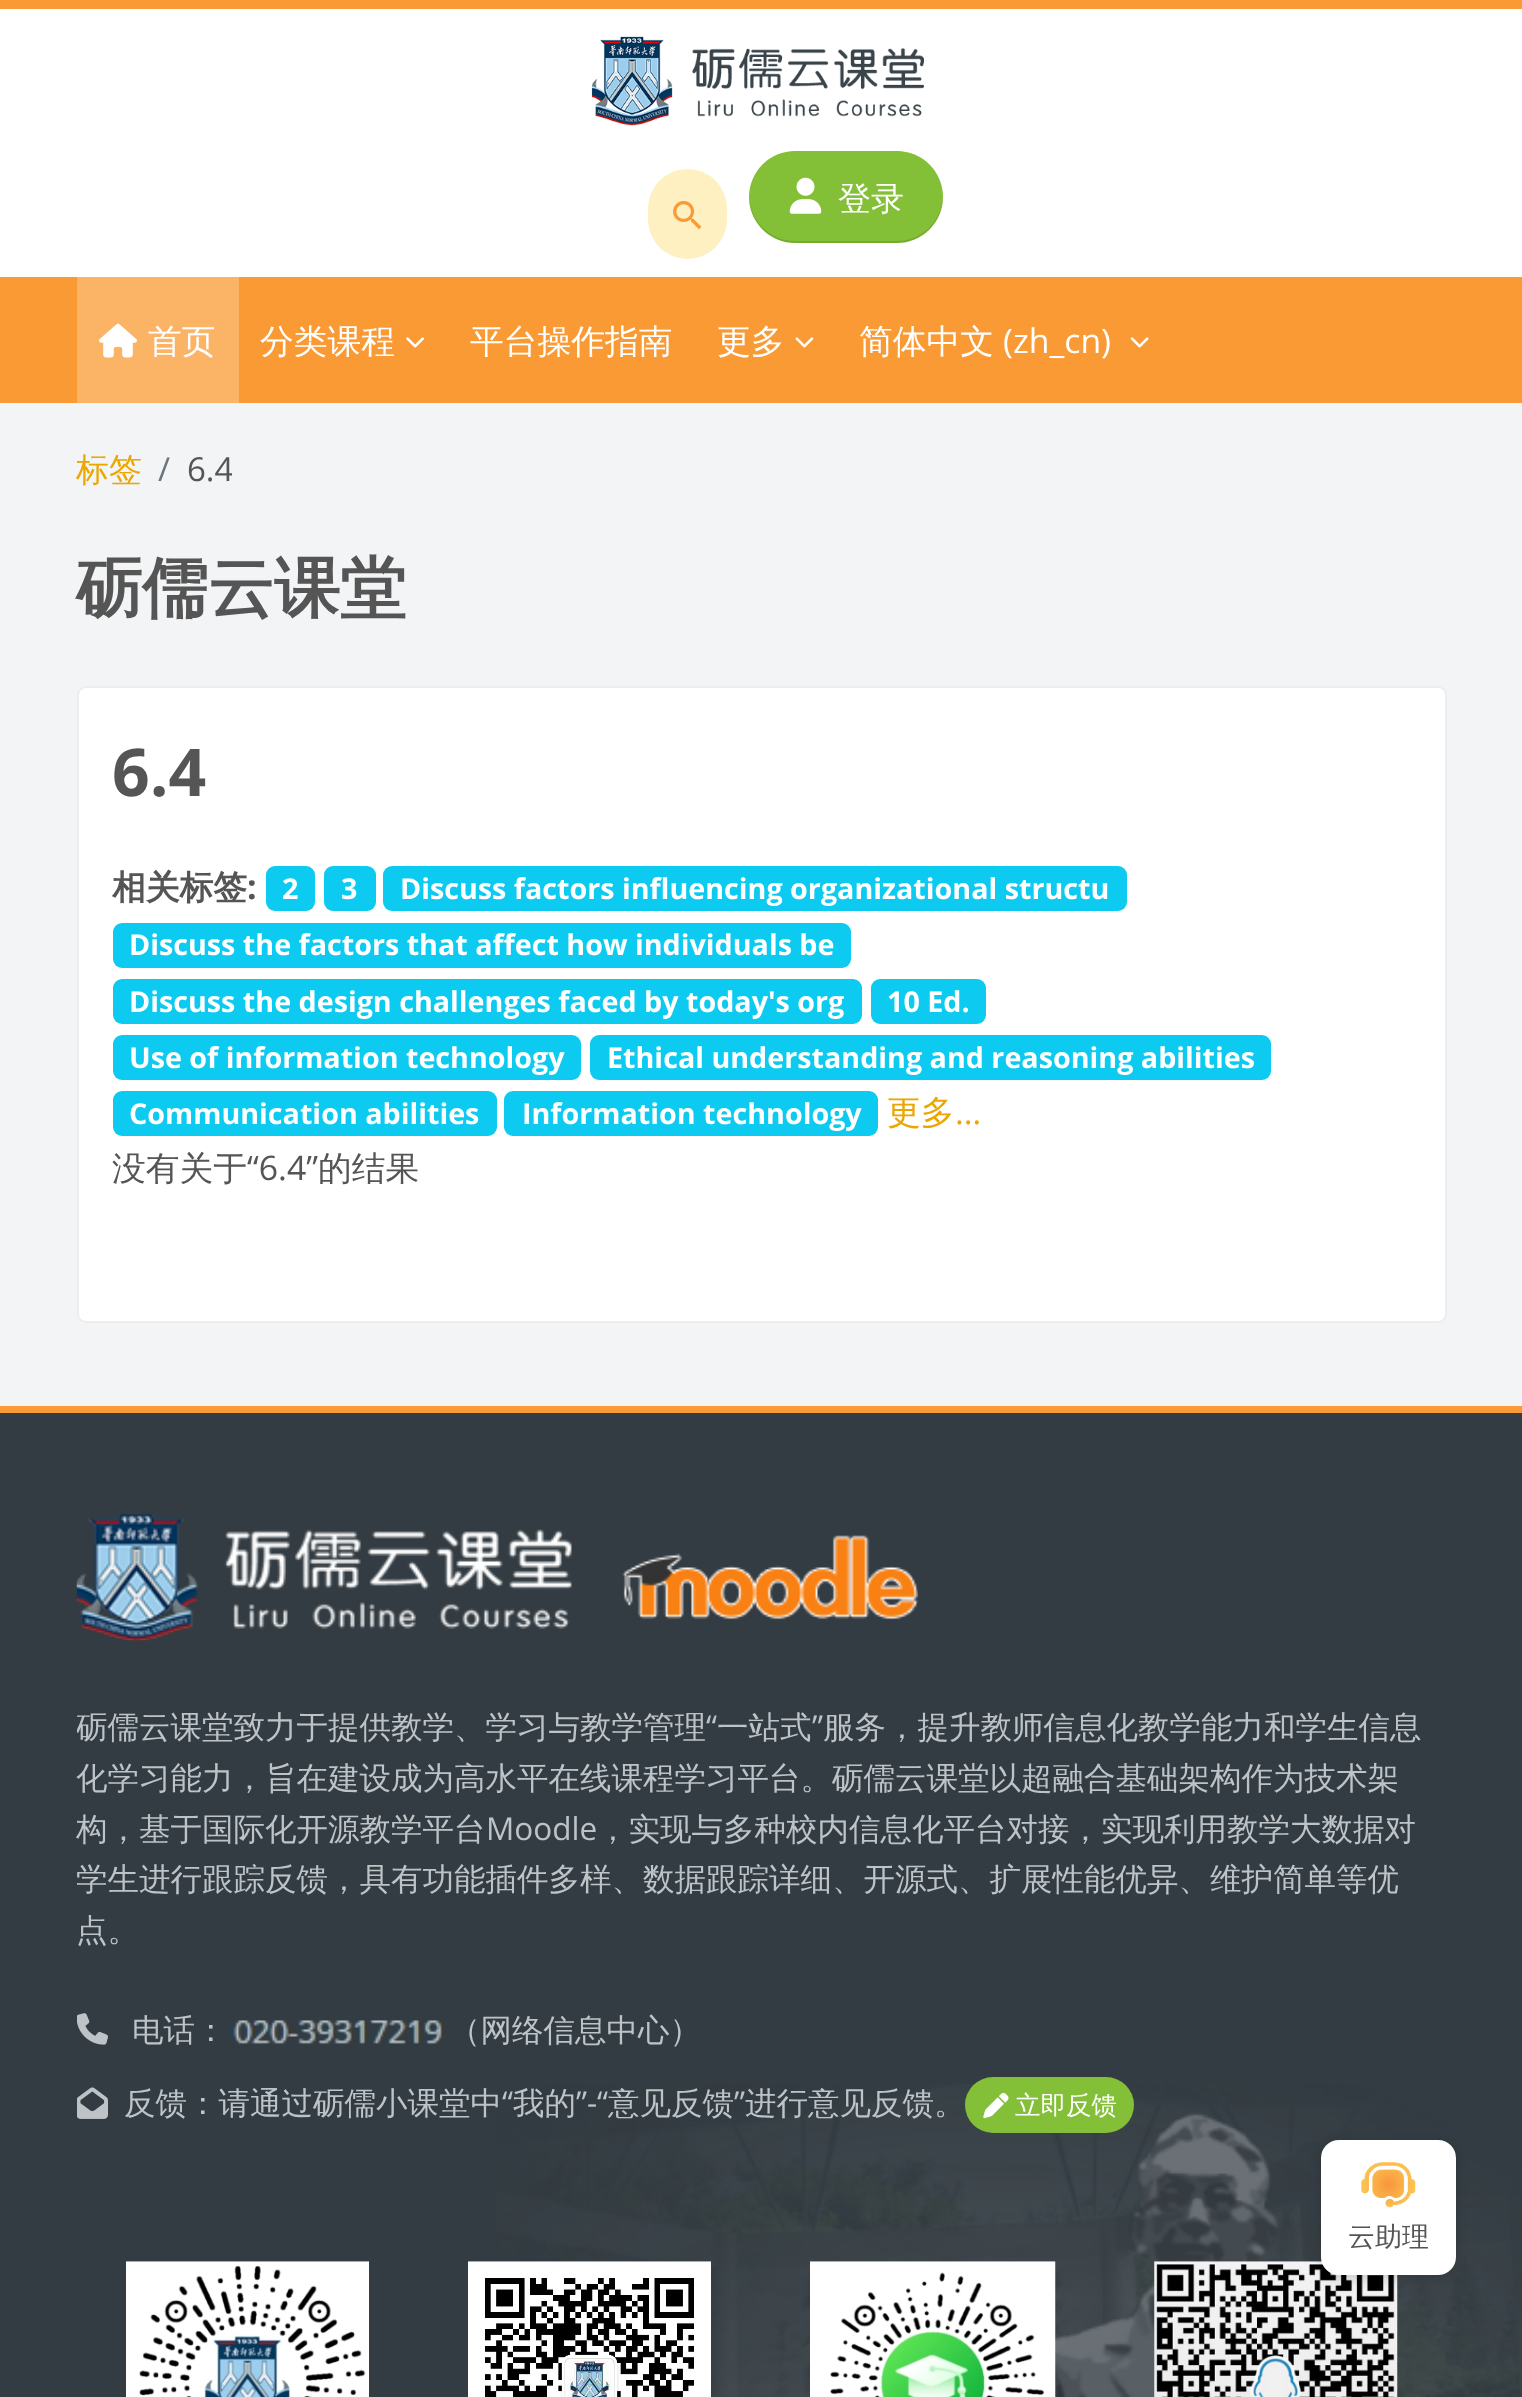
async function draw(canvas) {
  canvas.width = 1522;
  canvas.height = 2397;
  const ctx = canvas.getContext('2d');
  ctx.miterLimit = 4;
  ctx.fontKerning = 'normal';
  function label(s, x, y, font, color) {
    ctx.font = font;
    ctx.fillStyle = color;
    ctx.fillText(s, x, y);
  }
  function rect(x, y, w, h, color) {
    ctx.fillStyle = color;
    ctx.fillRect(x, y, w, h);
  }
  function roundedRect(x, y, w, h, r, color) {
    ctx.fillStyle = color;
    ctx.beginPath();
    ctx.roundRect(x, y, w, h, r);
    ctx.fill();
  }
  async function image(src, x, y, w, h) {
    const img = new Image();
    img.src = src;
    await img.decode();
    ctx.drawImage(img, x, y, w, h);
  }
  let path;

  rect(0, 0, 1522, 2397, '#f2f4f6');
  rect(0, 0, 1522, 9, '#fa9a34');
  rect(0, 9, 1522, 268, '#fff');
  await image('assets/img1.png', 591, 36, 333, 90);
  roundedRect(648, 169, 79, 90, 39.5, '#fef0c1');
  await image('assets/img2.png', 673, 201, 29, 29);
  roundedRect(749, 151, 194, 92, 46, '#83bf37');
  ctx.fillStyle = '#0000001a';
  path = new Path2D('M749 196V197C749 222 770 243 795 243H897C922 243 943 222 943 197V196C942 221 922 241 897 241H795C770 241 750 221 749 196Z');
  ctx.fill(path);
  await image('assets/img3.png', 789, 177, 33, 37);
  label('登录', 838, 210, '500 33px WenQuanYi Zen Hei', '#fff');
  rect(0, 277, 1522, 126, '#fa9a34');
  rect(77, 277, 162, 126, '#fbb366');
  await image('assets/img4.png', 99, 323, 38, 35);
  label('首页', 148, 353, '500 33.75px WenQuanYi Zen Hei', '#fff');
  label('分类课程', 260, 353, '500 33.75px WenQuanYi Zen Hei', '#fff');
  await image('assets/img5.png', 406, 337, 18, 11);
  label('平台操作指南', 470, 353, '500 33.75px WenQuanYi Zen Hei', '#fff');
  label('更多', 717, 353, '500 33.75px WenQuanYi Zen Hei', '#fff');
  await image('assets/img6.png', 795, 337, 19, 11);
  label('简体中文', 859, 353, '500 33.75px WenQuanYi Zen Hei', '#fff');
  label('(zh_cn)', 1003, 353, '33.75px Open Sans', '#fff');
  await image('assets/img7.png', 1130, 337, 19, 11);
  label('标签', 76, 481, '500 33px WenQuanYi Zen Hei', '#eba600');
  label('/', 158, 481, '33px Open Sans', '#6c757d');
  ctx.save();
  ctx.beginPath();
  ctx.rect(187, 441, 45, 56);
  ctx.clip();
  label('6.4', 187, 481, '33px Open Sans', '#555');
  ctx.restore();
  label('砺儒云课堂', 76, 611, 'bold 66px WenQuanYi Zen Hei', '#555');
  roundedRect(77, 686, 1370, 637, 9, '#fff');
  ctx.beginPath();
  ctx.roundRect(78, 687, 1368, 635, 8);
  ctx.strokeStyle = '#00000012';
  ctx.lineWidth = 2;
  ctx.stroke();
  label('6.4', 112, 796, 'bold 66px Open Sans', '#555');
  label('相关标签', 112, 899, 'bold 33.75px WenQuanYi Zen Hei', '#555');
  roundedRect(266, 866, 49, 45, 9, '#0dcaf0');
  label('2', 282, 899, 'bold 28.7px Open Sans', '#fff');
  roundedRect(324, 866, 52, 45, 9, '#0dcaf0');
  label('3', 341, 899, 'bold 28.7px Open Sans', '#fff');
  roundedRect(383, 866, 744, 45, 9, '#0dcaf0');
  label('Discuss factors influencing organizational structu', 400, 899, 'bold 28.7px Open Sans', '#fff');
  roundedRect(113, 923, 738, 45, 9, '#0dcaf0');
  label('Discuss the factors that affect how individuals be', 129, 955, 'bold 28.7px Open Sans', '#fff');
  roundedRect(113, 979, 749, 45, 9, '#0dcaf0');
  label('Discuss the design challenges faced by today\'s org', 129, 1012, 'bold 28.7px Open Sans', '#fff');
  roundedRect(871, 979, 115, 45, 9, '#0dcaf0');
  label('10 Ed.', 887, 1012, 'bold 28.7px Open Sans', '#fff');
  roundedRect(113, 1035, 468, 45, 9, '#0dcaf0');
  label('Use of information technology', 129, 1068, 'bold 28.7px Open Sans', '#fff');
  roundedRect(590, 1035, 681, 45, 9, '#0dcaf0');
  label('Ethical understanding and reasoning abilities', 607, 1068, 'bold 28.7px Open Sans', '#fff');
  roundedRect(113, 1091, 384, 45, 9, '#0dcaf0');
  label('Communication abilities', 129, 1124, 'bold 28.7px Open Sans', '#fff');
  roundedRect(504, 1091, 374, 45, 9, '#0dcaf0');
  label('Information technology', 522, 1124, 'bold 28.7px Open Sans', '#fff');
  label('更多', 887, 1124, '500 33.75px WenQuanYi Zen Hei', '#eba600');
  label('…', 955, 1124, '33.75px Open Sans', '#eba600');
  label(':', 247, 899, 'bold 33.75px Open Sans', '#555');
  label('没有关于', 112, 1180, '500 33.75px WenQuanYi Zen Hei', '#555');
  label('“6.4”', 247, 1180, '33.75px Open Sans', '#555');
  label('的结果', 318, 1180, '500 33.75px WenQuanYi Zen Hei', '#555');
  rect(0, 1413, 1522, 984, '#333c42');
  rect(0, 1406, 1522, 7, '#fa9a34');
  await image('assets/img8.png', 76, 1514, 842, 127);
  ctx.save();
  ctx.beginPath();
  ctx.rect(77, 1514, 1370, 619);
  ctx.clip();
  label('砺儒云课堂致力于提供教学、学习与教学管理', 76, 1738, '500 31.5px WenQuanYi Zen Hei', '#bdc3c7');
  ctx.restore();
  label('“', 706, 1738, '31.5px Open Sans', '#bdc3c7');
  label('一站式', 717, 1738, '500 31.5px WenQuanYi Zen Hei', '#bdc3c7');
  label('”', 812, 1738, '31.5px Open Sans', '#bdc3c7');
  label('服务，提升教师信息化教学能力和学生信息', 823, 1738, '500 31.5px WenQuanYi Zen Hei', '#bdc3c7');
  label('化学习能力，旨在建设成为高水平在线课程学习平台。砺儒云课堂以超融合基础架构作为技术架', 76, 1789, '500 31.5px WenQuanYi Zen Hei', '#bdc3c7');
  label('构，基于国际化开源教学平台', 76, 1840, '500 31.5px WenQuanYi Zen Hei', '#bdc3c7');
  label('Moodle', 486, 1840, '31.5px Open Sans', '#bdc3c7');
  label('，实现与多种校内信息化平台对接，实现利用教学大数据对', 597, 1840, '500 31.5px WenQuanYi Zen Hei', '#bdc3c7');
  label('学生进行跟踪反馈，具有功能插件多样、数据跟踪详细、开源式、扩展性能优异、维护简单等优', 76, 1890, '500 31.5px WenQuanYi Zen Hei', '#bdc3c7');
  label('点。', 76, 1941, '500 31.5px WenQuanYi Zen Hei', '#bdc3c7');
  await image('assets/img9.png', 77, 2013, 31, 32);
  label('电话：', 132, 2041, '500 31.5px WenQuanYi Zen Hei', '#bdc3c7');
  await image('assets/img10.png', 230, 2020, 215, 24);
  label('（网络信息中心）', 449, 2041, '500 31.5px WenQuanYi Zen Hei', '#bdc3c7');
  await image('assets/img11.png', 77, 2087, 31, 32);
  await image('assets/img17.png', 496, 2084, 1026, 313);
  label('反馈：请通过砺儒小课堂中', 124, 2114, '500 31.5px WenQuanYi Zen Hei', '#bdc3c7');
  label('“', 502, 2114, '31.5px Open Sans', '#bdc3c7');
  label('我的', 513, 2114, '500 31.5px WenQuanYi Zen Hei', '#bdc3c7');
  label('”-“', 576, 2114, '31.5px Open Sans', '#bdc3c7');
  label('意见反馈', 608, 2114, '500 31.5px WenQuanYi Zen Hei', '#bdc3c7');
  label('”', 734, 2114, '31.5px Open Sans', '#bdc3c7');
  label('进行意见反馈。', 745, 2114, '500 31.5px WenQuanYi Zen Hei', '#bdc3c7');
  roundedRect(965, 2077, 169, 56, 28, '#83bf37');
  await image('assets/img12.png', 983, 2092, 26, 27);
  label('立即反馈', 1015, 2114, '500 25.5px WenQuanYi Zen Hei', '#fff');
  await image('assets/img13.png', 126, 2261, 243, 136);
  await image('assets/img14.png', 468, 2261, 243, 136);
  await image('assets/img15.png', 810, 2261, 246, 136);
  await image('assets/img16.png', 1154, 2261, 244, 136);
  ctx.fillStyle = '#00000029';
  ctx.filter = 'blur(5.5px)';
  ctx.beginPath();
  ctx.roundRect(1321, 2144, 135, 135, 18);
  ctx.fill();
  ctx.filter = 'none';
  roundedRect(1321, 2140, 135, 135, 18, '#fff');
  await image('assets/img18.png', 1361, 2162, 55, 46);
  label('云助理', 1348, 2246, '500 27px WenQuanYi Zen Hei', '#555');
}

draw(document.querySelector('canvas'));
